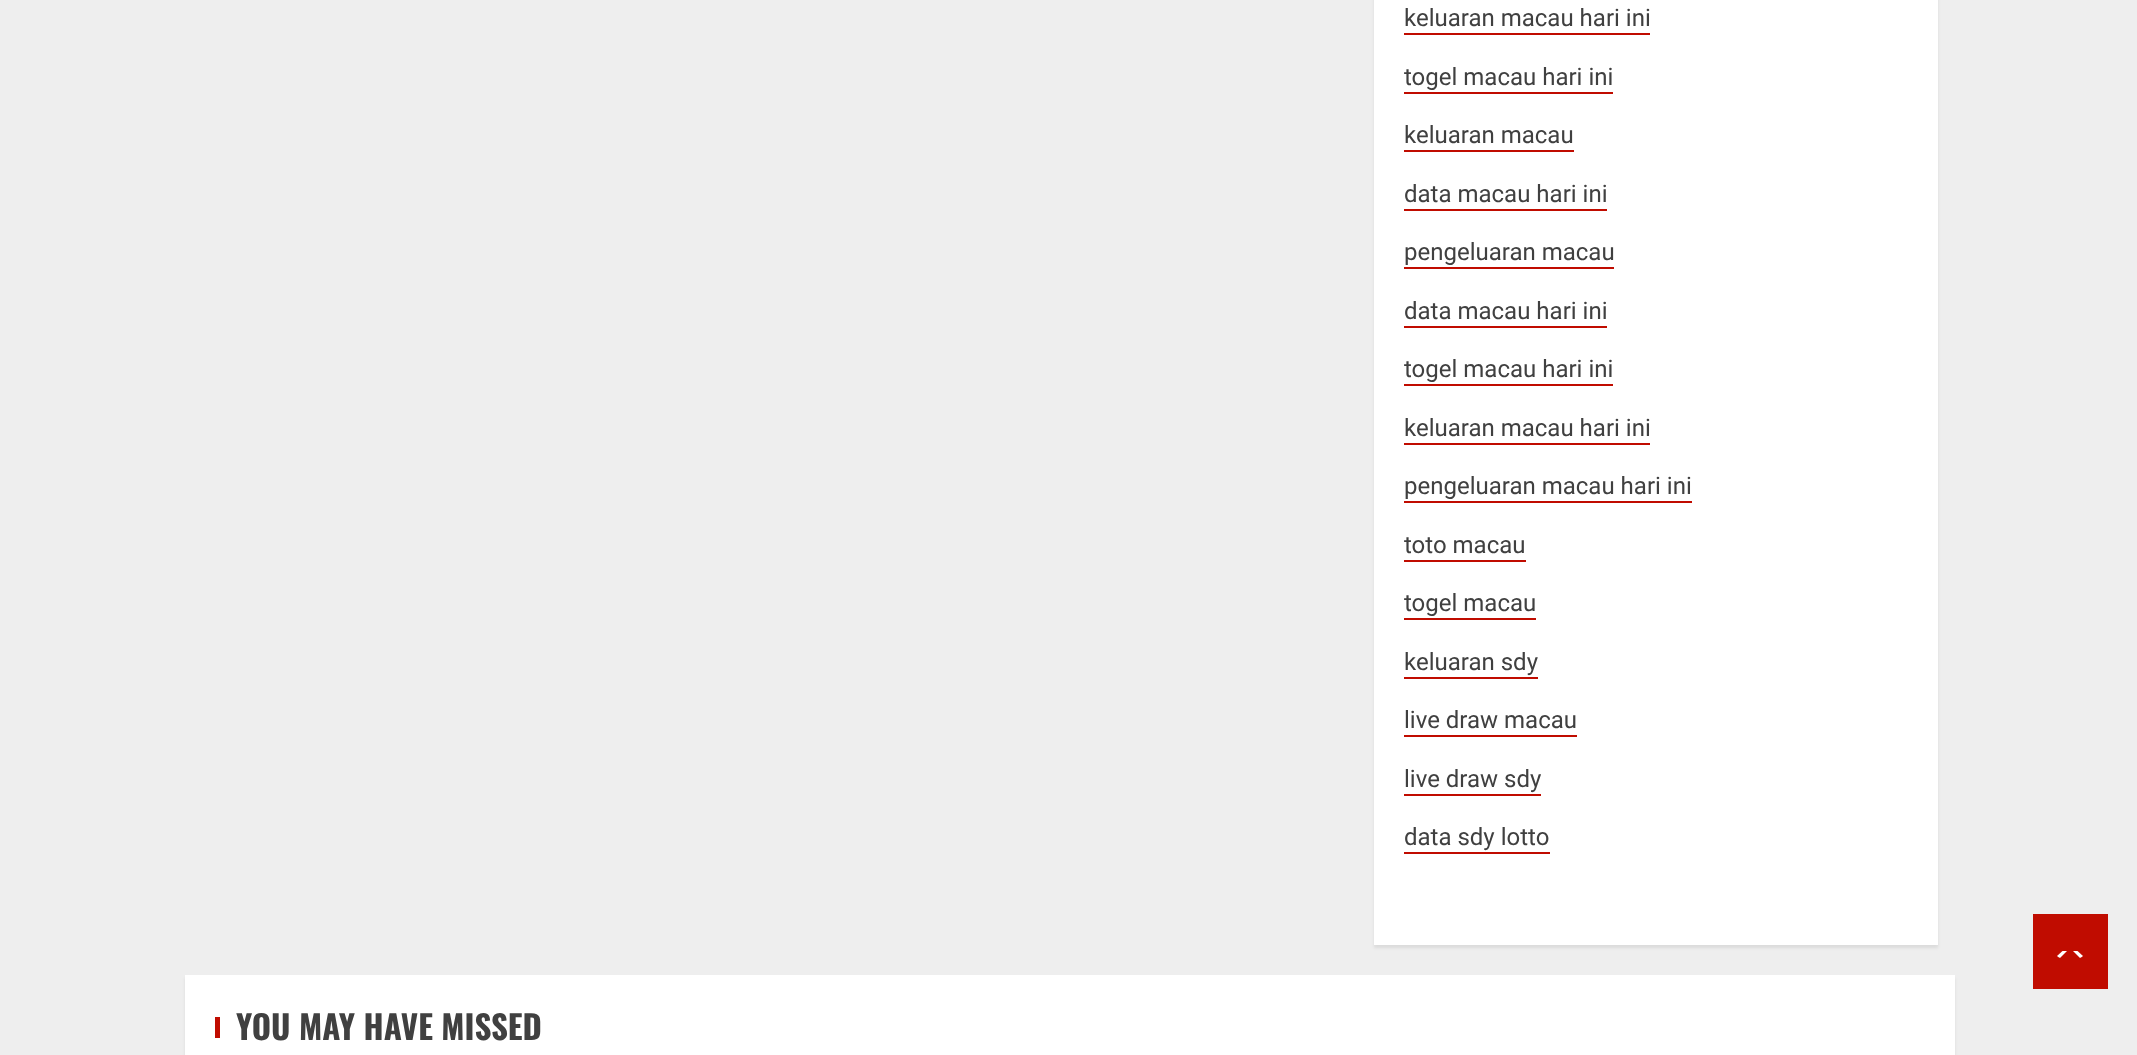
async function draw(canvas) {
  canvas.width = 2137;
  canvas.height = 1055;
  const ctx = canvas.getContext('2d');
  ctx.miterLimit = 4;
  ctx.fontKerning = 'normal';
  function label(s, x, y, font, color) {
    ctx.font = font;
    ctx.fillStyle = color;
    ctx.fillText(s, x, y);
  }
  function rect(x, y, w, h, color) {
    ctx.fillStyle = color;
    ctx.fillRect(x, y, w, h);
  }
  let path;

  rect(0, 0, 2137, 1055, '#eee');
  ctx.fillStyle = '#00000014';
  ctx.filter = 'blur(1.5px)';
  ctx.beginPath();
  ctx.rect(1374, -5, 564, 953);
  ctx.fill();
  ctx.filter = 'none';
  rect(1374, 0, 564, 945, '#fff');
  label('keluaran macau hari ini', 1404, 26, '24px Roboto', '#404040');
  rect(1404, 33, 246, 2, '#c00c00');
  label('togel macau hari ini', 1404, 85, '24px Roboto', '#404040');
  rect(1404, 92, 209, 2, '#c00c00');
  label('keluaran macau', 1404, 143, '24px Roboto', '#404040');
  rect(1404, 150, 170, 2, '#c00c00');
  label('data macau hari ini', 1404, 202, '24px Roboto', '#404040');
  rect(1404, 209, 203, 2, '#c00c00');
  label('pengeluaran macau', 1404, 260, '24px Roboto', '#404040');
  rect(1404, 267, 210, 2, '#c00c00');
  label('data macau hari ini', 1404, 319, '24px Roboto', '#404040');
  rect(1404, 326, 203, 2, '#c00c00');
  label('togel macau hari ini', 1404, 377, '24px Roboto', '#404040');
  rect(1404, 384, 209, 2, '#c00c00');
  label('keluaran macau hari ini', 1404, 436, '24px Roboto', '#404040');
  rect(1404, 443, 246, 2, '#c00c00');
  label('pengeluaran macau hari ini', 1404, 494, '24px Roboto', '#404040');
  rect(1404, 501, 288, 2, '#c00c00');
  label('toto macau', 1404, 553, '24px Roboto', '#404040');
  rect(1404, 560, 122, 2, '#c00c00');
  label('togel macau', 1404, 611, '24px Roboto', '#404040');
  rect(1404, 618, 132, 2, '#c00c00');
  label('keluaran sdy', 1404, 670, '24px Roboto', '#404040');
  rect(1404, 677, 134, 2, '#c00c00');
  label('live draw macau', 1404, 728, '24px Roboto', '#404040');
  rect(1404, 735, 173, 2, '#c00c00');
  label('live draw sdy', 1404, 787, '24px Roboto', '#404040');
  rect(1404, 794, 137, 2, '#c00c00');
  label('data sdy lotto', 1404, 845, '24px Roboto', '#404040');
  rect(1404, 852, 146, 2, '#c00c00');
  ctx.fillStyle = '#00000014';
  ctx.filter = 'blur(1.5px)';
  ctx.beginPath();
  ctx.rect(185, 978, 1770, 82);
  ctx.fill();
  ctx.filter = 'none';
  rect(185, 975, 1770, 80, '#fff');
  rect(215, 1017, 5, 21, '#c00c00');
  label('YOU MAY HAVE MISSED', 236, 1040, 'bold 33px Oswald', '#404040');
  rect(2033, 914, 75, 75, '#c00c00');
  ctx.fillStyle = '#fff';
  path = new Path2D('M2062.5 958.5H2077.5C2079.5 958.5 2081.5 957.5 2083 956L2077.5 951H2062.5L2057 956C2058.5 957.5 2060.5 958.5 2062.5 958.5Z');
  ctx.fill(path);
  ctx.fillStyle = '#c00c00';
  path = new Path2D('M2085 963H2055L2070 948Z');
  ctx.fill(path);
}

draw(document.querySelector('canvas'));
